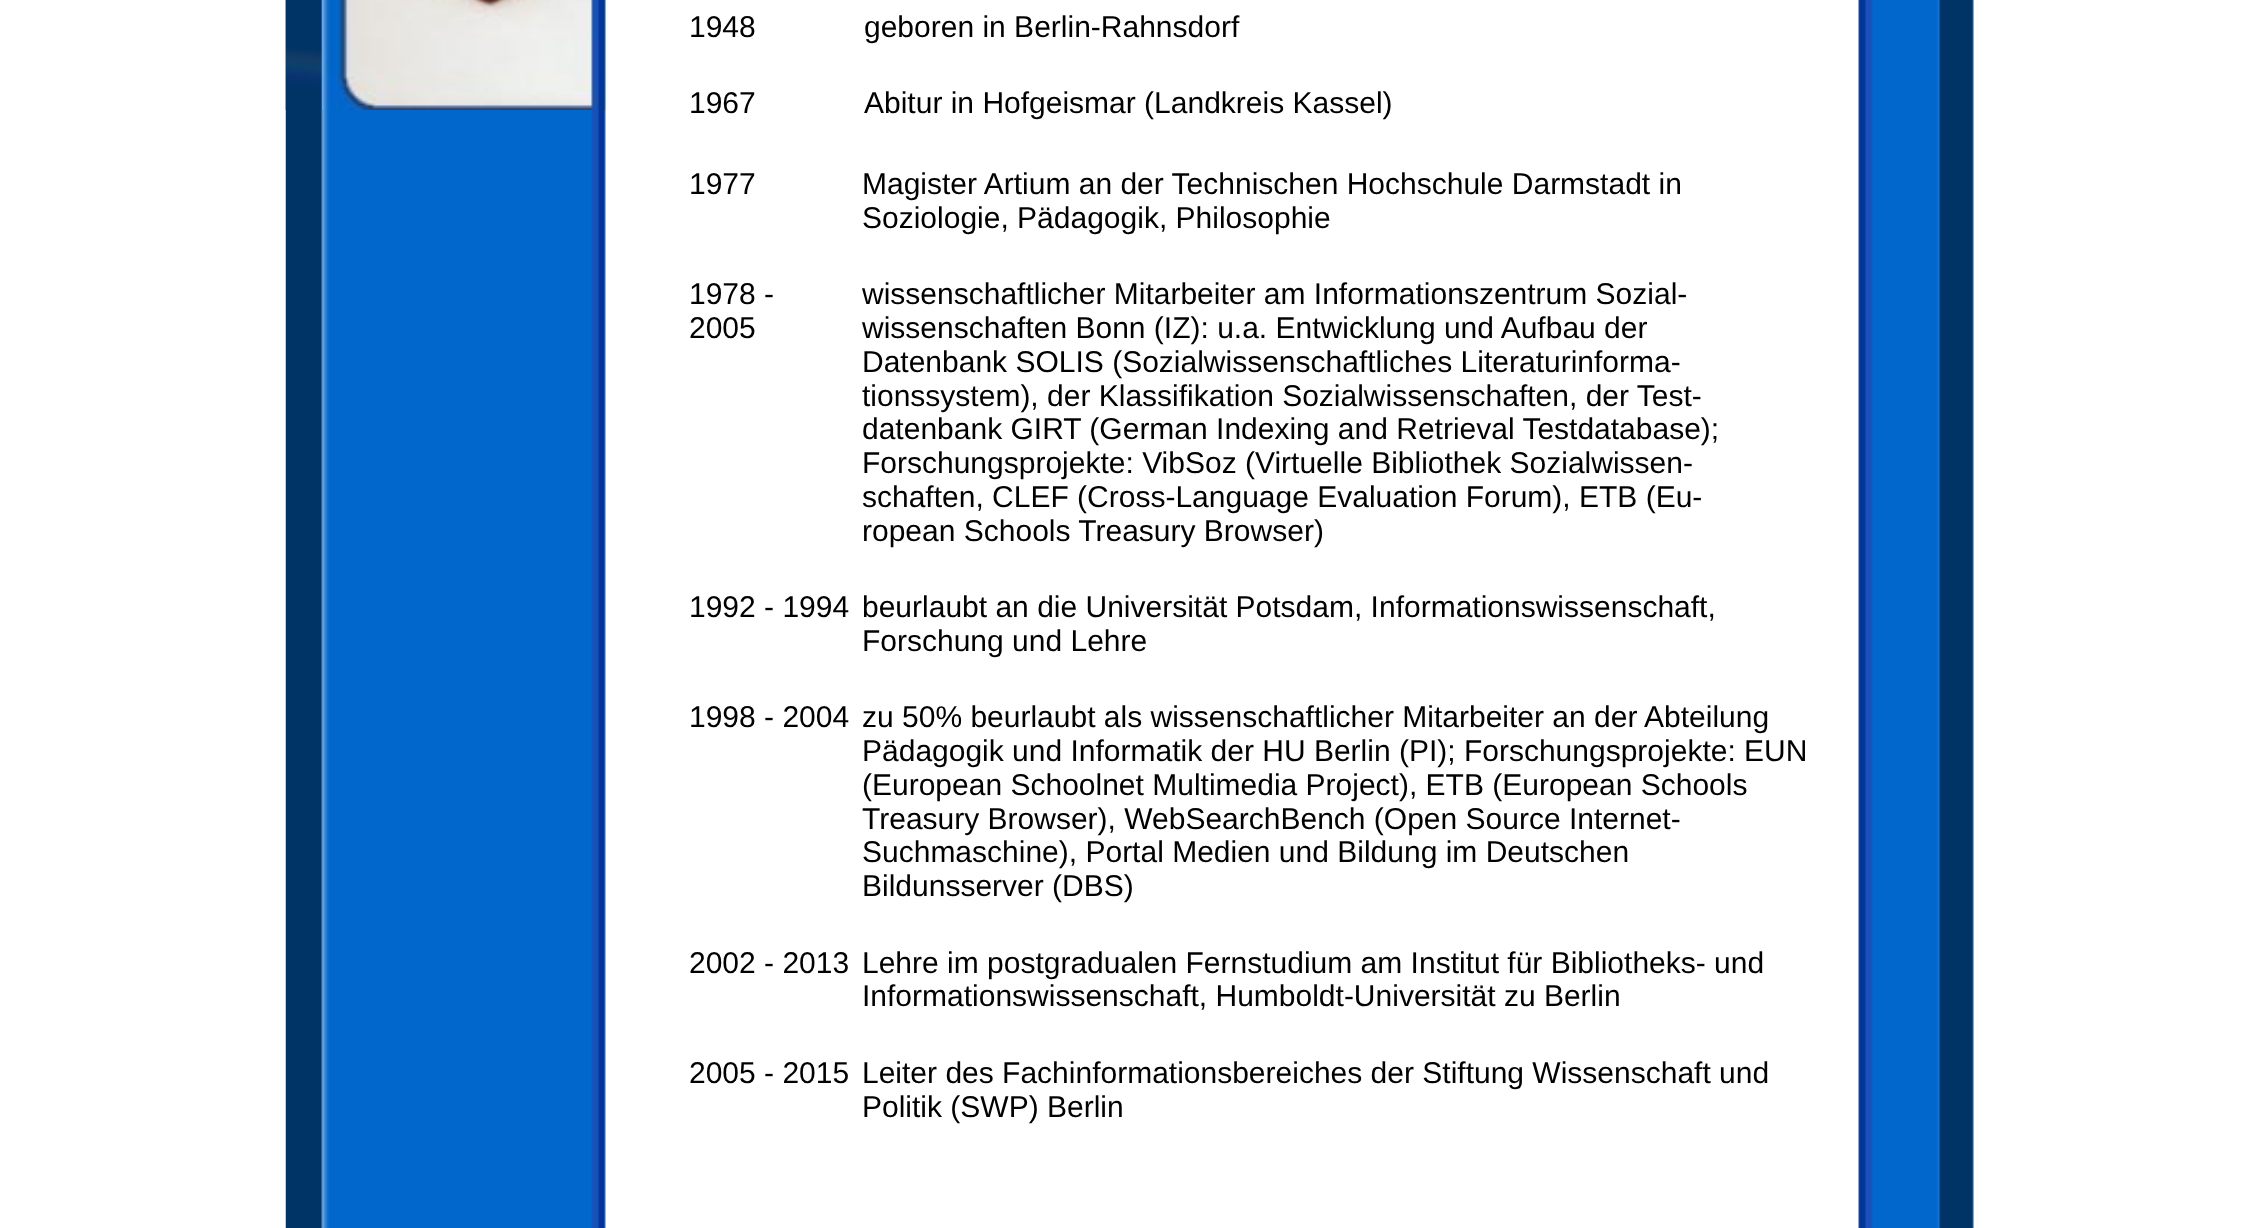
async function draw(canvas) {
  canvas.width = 2245;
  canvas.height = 1228;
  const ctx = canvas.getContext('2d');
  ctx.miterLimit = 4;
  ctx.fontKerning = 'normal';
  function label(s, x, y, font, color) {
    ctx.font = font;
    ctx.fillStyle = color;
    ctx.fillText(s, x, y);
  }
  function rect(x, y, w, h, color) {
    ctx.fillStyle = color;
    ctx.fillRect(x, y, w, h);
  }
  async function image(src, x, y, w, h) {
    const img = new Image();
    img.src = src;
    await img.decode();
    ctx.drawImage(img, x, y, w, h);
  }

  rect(0, 0, 2245, 1228, '#fff');
  await image('assets/img1.png', 285, 0, 321, 1228);
  await image('assets/img2.png', 285, 0, 37, 110);
  await image('assets/img3.png', 321, 0, 287, 110);
  label('1948', 689, 37, '30px Liberation Sans', '#000');
  label('geboren in Berlin-Rahnsdorf', 864, 37, '30px Liberation Sans', '#000');
  label('1967', 689, 113, '30px Liberation Sans', '#000');
  label('Abitur in Hofgeismar (Landkreis Kassel)', 864, 113, '30px Liberation Sans', '#000');
  label('1977', 689, 194, '30px Liberation Sans', '#000');
  label('Magister Artium an der Technischen Hochschule Darmstadt in', 862, 194, '30px Liberation Sans', '#000');
  label('Soziologie, Pädagogik, Philosophie', 862, 228, '30px Liberation Sans', '#000');
  label('1978 -', 689, 304, '30px Liberation Sans', '#000');
  label('2005', 689, 338, '30px Liberation Sans', '#000');
  label('wissenschaftlicher Mitarbeiter am Informationszentrum Sozial-', 862, 304, '30px Liberation Sans', '#000');
  label('wissenschaften Bonn (IZ): u.a. Entwicklung und Aufbau der', 862, 338, '30px Liberation Sans', '#000');
  label('Datenbank SOLIS (Sozialwissenschaftliches Literaturinforma-', 862, 372, '30px Liberation Sans', '#000');
  label('tionssystem), der Klassifikation Sozialwissenschaften, der Test-', 862, 406, '30px Liberation Sans', '#000');
  label('datenbank GIRT (German Indexing and Retrieval Testdatabase);', 862, 439, '30px Liberation Sans', '#000');
  label('Forschungsprojekte: VibSoz (Virtuelle Bibliothek Sozialwissen-', 862, 473, '30px Liberation Sans', '#000');
  label('schaften, CLEF (Cross-Language Evaluation Forum), ETB (Eu-', 862, 507, '30px Liberation Sans', '#000');
  label('ropean Schools Treasury Browser)', 862, 541, '30px Liberation Sans', '#000');
  label('1992 - 1994', 689, 617, '30px Liberation Sans', '#000');
  label('beurlaubt an die Universität Potsdam, Informationswissenschaft,', 862, 617, '30px Liberation Sans', '#000');
  label('Forschung und Lehre', 862, 651, '30px Liberation Sans', '#000');
  label('1998 - 2004', 689, 727, '30px Liberation Sans', '#000');
  label('zu 50% beurlaubt als wissenschaftlicher Mitarbeiter an der Abteilung', 862, 727, '30px Liberation Sans', '#000');
  label('Pädagogik und Informatik der HU Berlin (PI); Forschungsprojekte: EUN', 862, 761, '30px Liberation Sans', '#000');
  label('(European Schoolnet Multimedia Project), ETB (European Schools', 862, 795, '30px Liberation Sans', '#000');
  label('Treasury Browser), WebSearchBench (Open Source Internet-', 862, 829, '30px Liberation Sans', '#000');
  label('Suchmaschine), Portal Medien und Bildung im Deutschen', 862, 862, '30px Liberation Sans', '#000');
  label('Bildunsserver (DBS)', 862, 896, '30px Liberation Sans', '#000');
  label('2002 - 2013', 689, 973, '30px Liberation Sans', '#000');
  label('Lehre im postgradualen Fernstudium am Institut für Bibliotheks- und', 862, 973, '30px Liberation Sans', '#000');
  label('Informationswissenschaft, Humboldt-Universität zu Berlin', 862, 1006, '30px Liberation Sans', '#000');
  label('2005 - 2015', 689, 1083, '30px Liberation Sans', '#000');
  label('Leiter des Fachinformationsbereiches der Stiftung Wissenschaft und', 862, 1083, '30px Liberation Sans', '#000');
  label('Politik (SWP) Berlin', 862, 1117, '30px Liberation Sans', '#000');
  await image('assets/img4.png', 1858, 0, 116, 1228);
}

draw(document.querySelector('canvas'));
